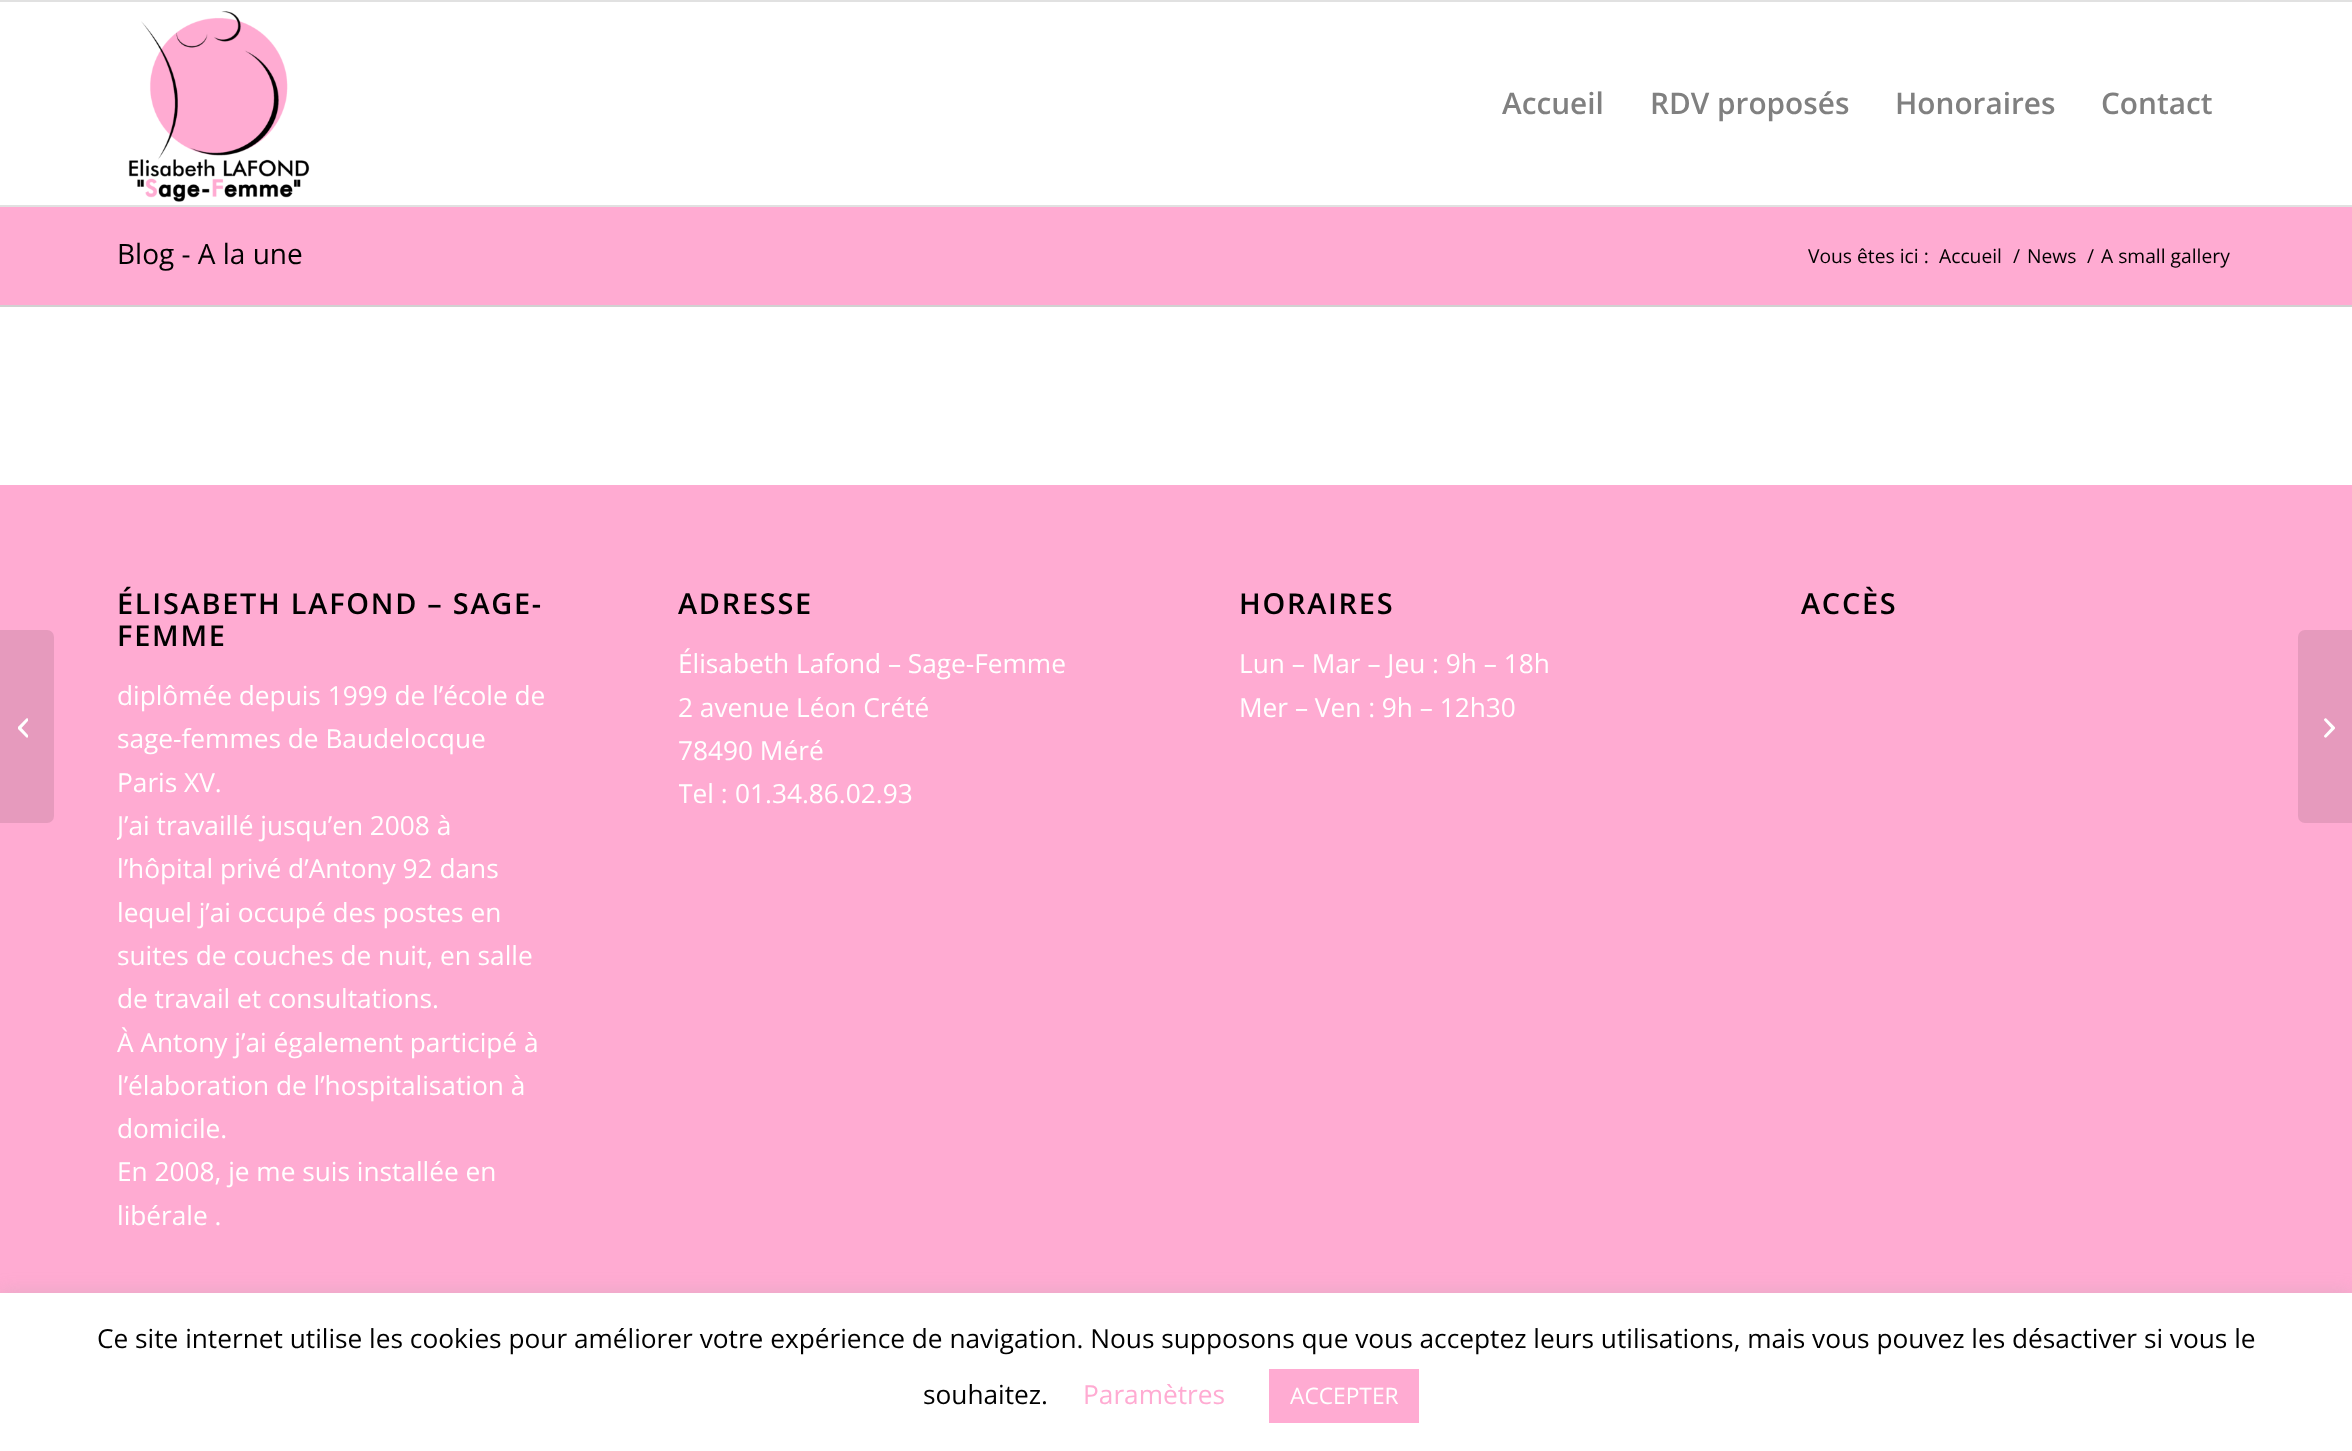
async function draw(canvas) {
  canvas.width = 2352;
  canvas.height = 1451;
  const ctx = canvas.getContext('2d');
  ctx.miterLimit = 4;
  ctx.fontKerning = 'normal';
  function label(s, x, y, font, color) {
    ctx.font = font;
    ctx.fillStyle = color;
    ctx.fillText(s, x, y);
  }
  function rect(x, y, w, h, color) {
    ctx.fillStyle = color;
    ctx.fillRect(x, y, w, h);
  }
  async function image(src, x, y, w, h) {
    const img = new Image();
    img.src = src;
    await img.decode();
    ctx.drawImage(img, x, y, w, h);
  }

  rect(0, 0, 2352, 1451, '#fff');
  rect(0, 0, 2352, 2, '#e1e1e1');
  rect(0, 205, 2352, 2, '#e1e1e1');
  await image('assets/img1.png', 128, 11, 182, 191);
  label('Accueil', 1502, 114, '600 29.75px Open Sans', '#808080');
  label('RDV proposés', 1650, 114, '600 29.75px Open Sans', '#808080');
  label('Honoraires', 1895, 114, '600 29.75px Open Sans', '#808080');
  label('Contact', 2101, 114, '600 29.75px Open Sans', '#808080');
  rect(0, 485, 2352, 808, '#ffabd2');
  ctx.fillStyle = '#e69abd';
  ctx.beginPath();
  ctx.roundRect(0, 630, 54, 193, [0, 7, 7, 0]);
  ctx.fill();
  await image('assets/img2.png', 18, 718, 10, 20);
  rect(0, 207, 2352, 98, '#ffabd2');
  label('Blog - A la une', 117, 264, '28px Open Sans', '#000');
  label('Vous êtes ici :', 1808, 263, '19.25px Open Sans', '#000');
  label('Accueil', 1939, 263, '19.25px Open Sans', '#000');
  label('/', 2013, 263, '19.25px Open Sans', '#000');
  label('News', 2027, 263, '19.25px Open Sans', '#000');
  label('/', 2087, 263, '19.25px Open Sans', '#000');
  label('A small gallery', 2101, 263, '19.25px Open Sans', '#000');
  rect(0, 305, 2352, 2, '#d1d1d1');
  ctx.letterSpacing = '1.75px';
  label('ÉLISABETH LAFOND – SAGE-', 117, 614, '600 28.9px Open Sans', '#000');
  label('FEMME', 117, 646, '600 28.9px Open Sans', '#000');
  ctx.letterSpacing = '0px';
  label('diplômée depuis 1999 de l’école de', 117, 705, '26.25px Open Sans', '#fff');
  label('sage-femmes de Baudelocque', 117, 748, '26.25px Open Sans', '#fff');
  label('Paris XV.', 117, 792, '26.25px Open Sans', '#fff');
  ctx.save();
  ctx.beginPath();
  ctx.rect(117, 564, 434, 694);
  ctx.clip();
  label('J’ai travaillé jusqu’en 2008 à', 117, 835, '26.25px Open Sans', '#fff');
  ctx.restore();
  label('l’hôpital privé d’Antony 92 dans', 117, 878, '26.25px Open Sans', '#fff');
  label('lequel j’ai occupé des postes en', 117, 922, '26.25px Open Sans', '#fff');
  label('suites de couches de nuit, en salle', 117, 965, '26.25px Open Sans', '#fff');
  label('de travail et consultations.', 117, 1008, '26.25px Open Sans', '#fff');
  label('À Antony j’ai également participé à', 117, 1052, '26.25px Open Sans', '#fff');
  label('l’élaboration de l’hospitalisation à', 117, 1095, '26.25px Open Sans', '#fff');
  label('domicile.', 117, 1138, '26.25px Open Sans', '#fff');
  label('En 2008, je me suis installée en', 117, 1181, '26.25px Open Sans', '#fff');
  label('libérale .', 117, 1225, '26.25px Open Sans', '#fff');
  ctx.letterSpacing = '1.75px';
  label('ADRESSE', 678, 614, '600 28.9px Open Sans', '#000');
  ctx.letterSpacing = '0px';
  label('Élisabeth Lafond – Sage-Femme', 678, 673, '26.25px Open Sans', '#fff');
  label('2 avenue Léon Crété', 678, 717, '26.25px Open Sans', '#fff');
  label('78490 Méré', 678, 760, '26.25px Open Sans', '#fff');
  ctx.save();
  ctx.beginPath();
  ctx.rect(679, 564, 434, 273);
  ctx.clip();
  label('Tel :', 678, 803, '26.25px Open Sans', '#fff');
  ctx.restore();
  label('01.34.86.02.93', 735, 803, '26.25px Open Sans', '#fff');
  ctx.letterSpacing = '1.75px';
  label('HORAIRES', 1239, 614, '600 28.9px Open Sans', '#000');
  ctx.letterSpacing = '0px';
  label('Lun – Mar – Jeu : 9h – 18h', 1239, 673, '26.25px Open Sans', '#fff');
  label('Mer – Ven : 9h – 12h30', 1239, 717, '26.25px Open Sans', '#fff');
  ctx.letterSpacing = '1.75px';
  label('ACCÈS', 1801, 614, '600 28.9px Open Sans', '#000');
  ctx.fillStyle = '#e69abd';
  ctx.beginPath();
  ctx.roundRect(2298, 630, 54, 193, [7, 0, 0, 7]);
  ctx.fill();
  await image('assets/img3.png', 2324, 718, 11, 20);
  ctx.fillStyle = '#acabab4d';
  ctx.filter = 'blur(9px)';
  ctx.beginPath();
  ctx.rect(0, 1292, 2352, 159);
  ctx.fill();
  ctx.filter = 'none';
  rect(0, 1293, 2352, 158, '#fff');
  ctx.letterSpacing = '0px';
  label('Ce site internet utilise les cookies pour améliorer votre expérience de navigation. Nous supposons que vous acceptez leurs utilisations, mais vous pouvez les désactiver si vous le', 97, 1348, '26.25px Open Sans', '#000');
  label('souhaitez.', 923, 1404, '26.25px Open Sans', '#000');
  label('Paramètres', 1083, 1404, '26.25px Open Sans', '#ffabd2');
  rect(1269, 1369, 150, 54, '#ffabd2');
  label('ACCEPTER', 1290, 1404, '22.75px Open Sans', '#fff');
}

draw(document.querySelector('canvas'));
